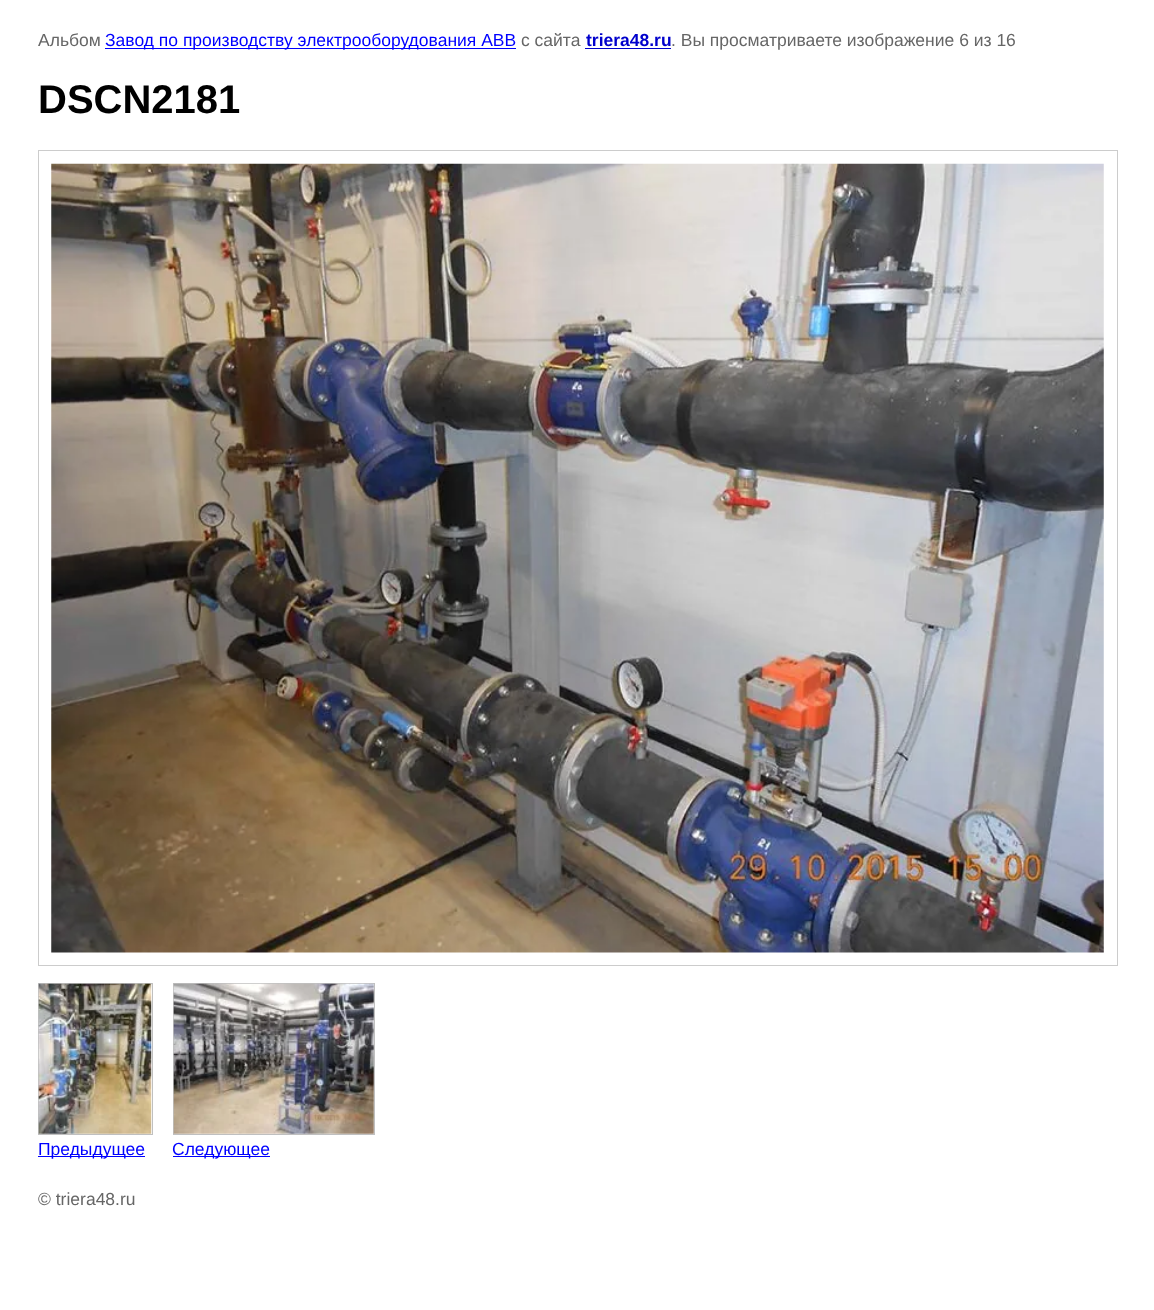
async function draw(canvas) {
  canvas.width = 1154;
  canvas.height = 1310;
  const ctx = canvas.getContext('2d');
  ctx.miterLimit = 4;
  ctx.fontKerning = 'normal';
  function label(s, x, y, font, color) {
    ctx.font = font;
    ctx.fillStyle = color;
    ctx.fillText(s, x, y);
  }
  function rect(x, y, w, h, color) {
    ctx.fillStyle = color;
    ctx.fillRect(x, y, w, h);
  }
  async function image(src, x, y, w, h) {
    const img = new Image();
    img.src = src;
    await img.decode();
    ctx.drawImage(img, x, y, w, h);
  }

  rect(0, 0, 1154, 1310, '#fff');
  label('Альбом', 38, 46, '17.5px Liberation Sans', '#666');
  rect(105, 48, 411, 1, '#00f');
  label('Завод по производству электрооборудования АBB', 105, 46, '17.5px Liberation Sans', '#00f');
  label('с сайта', 521, 46, '17.5px Liberation Sans', '#666');
  label('triera48.ru', 586, 46, 'bold 17.5px Liberation Sans', '#00c');
  rect(585, 48, 86, 1, '#00c');
  label('. Вы просматриваете изображение 6 из 16', 671, 46, '17.5px Liberation Sans', '#666');
  label('DSCN2181', 38, 113, 'bold 40px Liberation Sans', '#000');
  ctx.strokeStyle = '#ccc';
  ctx.strokeRect(38.5, 150.5, 1079, 815);
  await image('assets/img1.png', 51, 163, 1053, 790);
  ctx.strokeStyle = '#c0c0c0';
  ctx.strokeRect(38.5, 983.5, 114, 151);
  await image('assets/img2.png', 38, 983, 114, 151);
  rect(38, 1156, 107, 1, '#00f');
  label('Предыдущее', 38, 1155, '17.5px Liberation Sans', '#00f');
  ctx.strokeRect(173.5, 983.5, 201, 151);
  await image('assets/img3.png', 173, 983, 201, 151);
  rect(173, 1156, 97, 1, '#00f');
  label('Следующее', 172, 1155, '17.5px Liberation Sans', '#00f');
  label('© triera48.ru', 38, 1205, '17.5px Liberation Sans', '#666');
}

draw(document.querySelector('canvas'));
